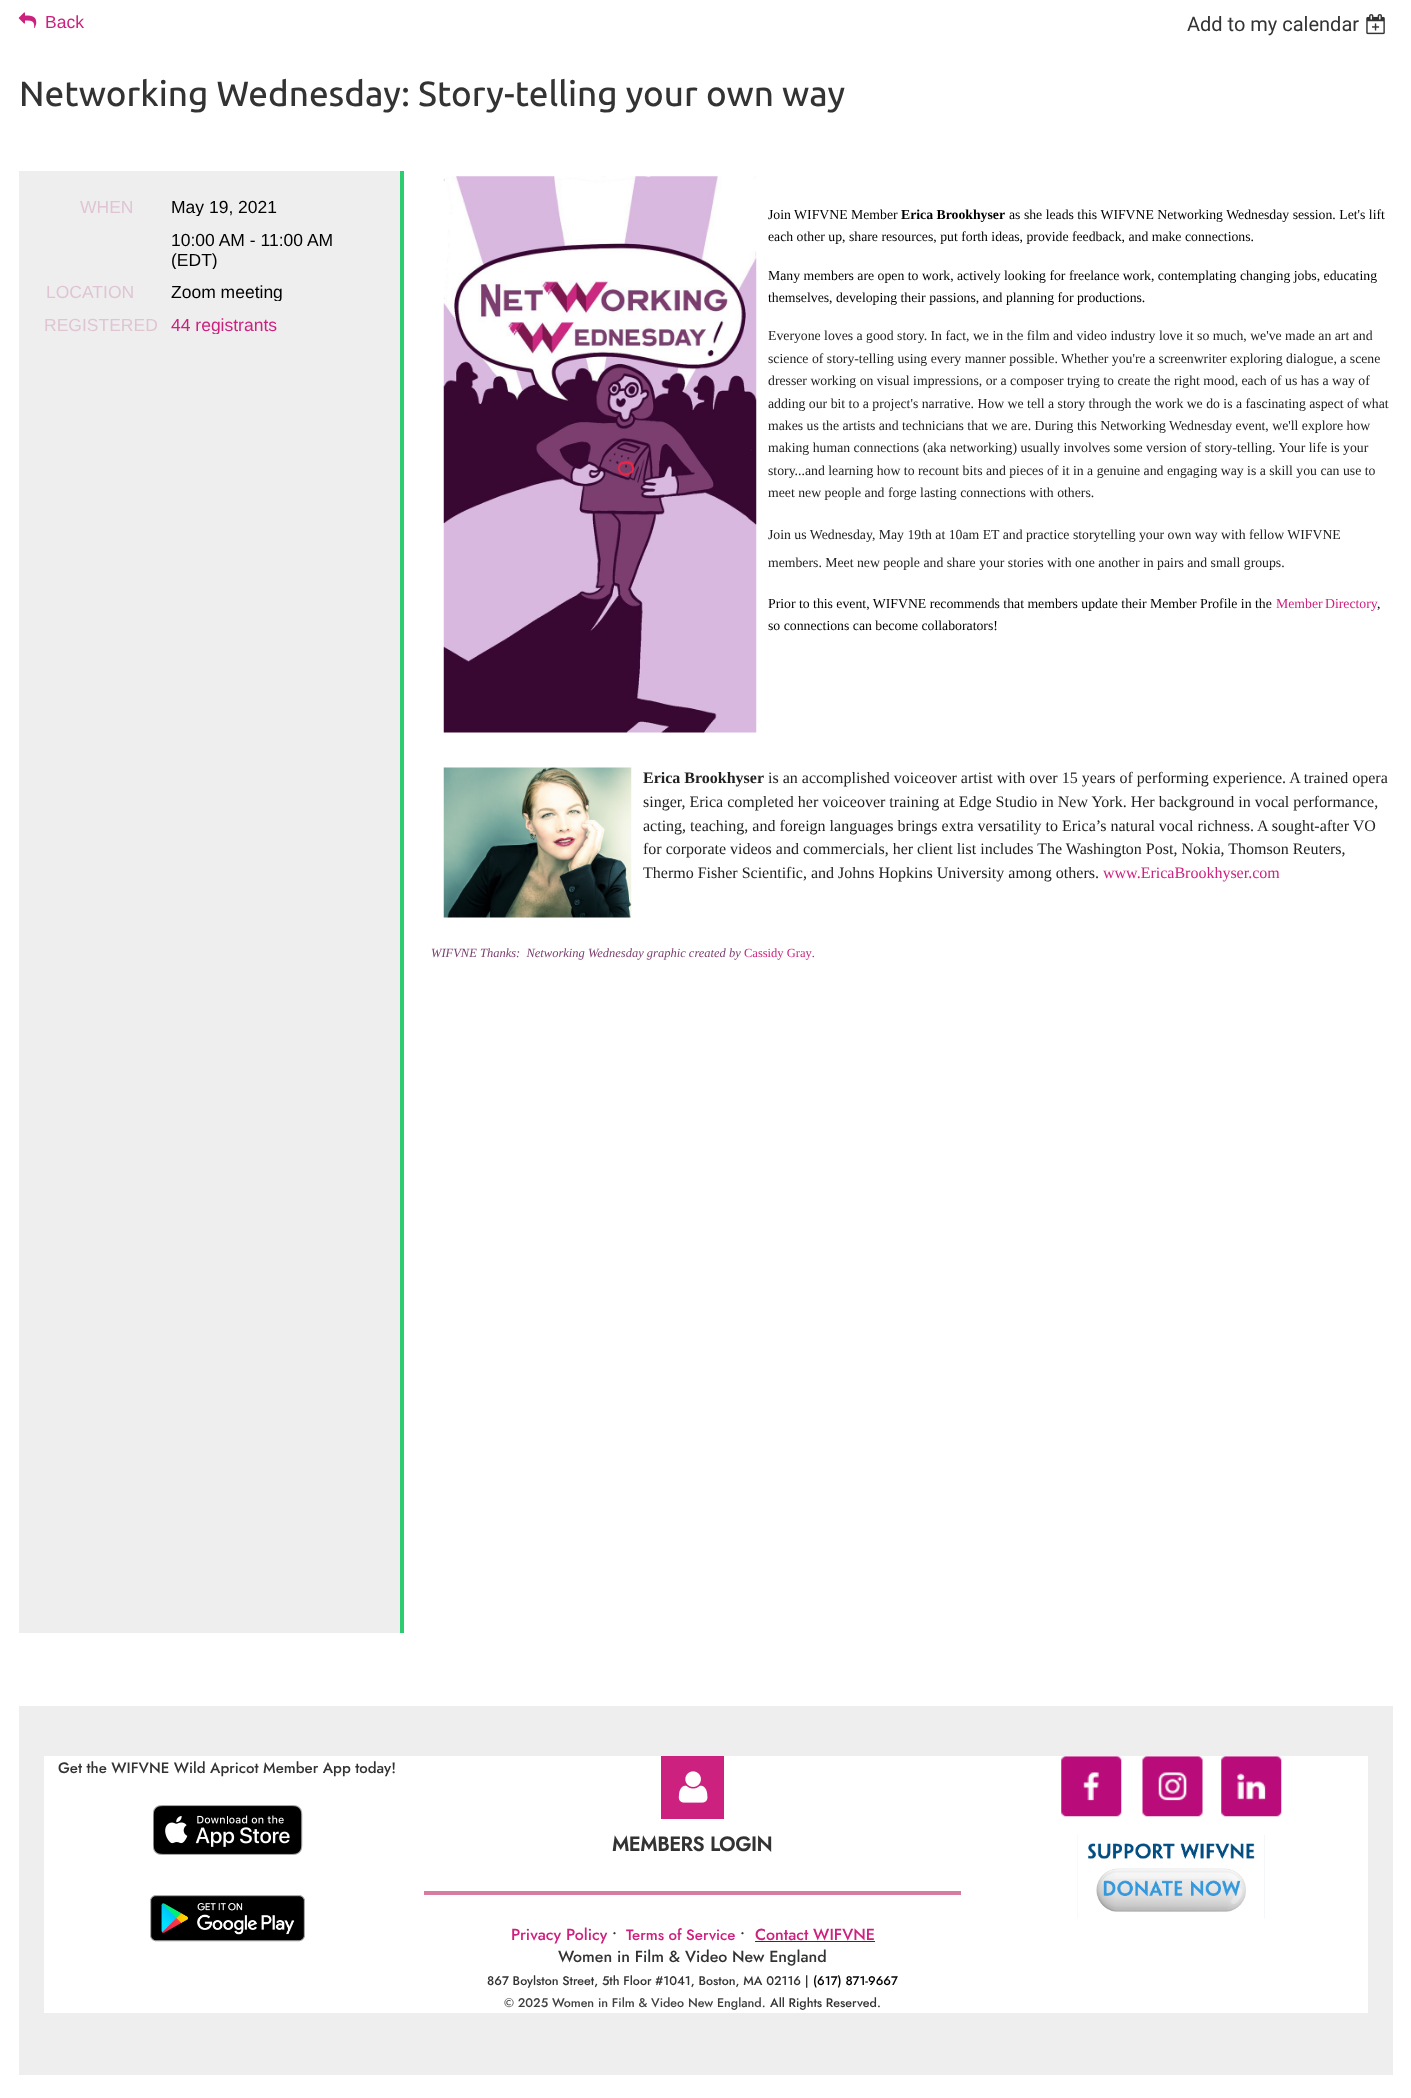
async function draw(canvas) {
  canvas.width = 1411;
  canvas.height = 2098;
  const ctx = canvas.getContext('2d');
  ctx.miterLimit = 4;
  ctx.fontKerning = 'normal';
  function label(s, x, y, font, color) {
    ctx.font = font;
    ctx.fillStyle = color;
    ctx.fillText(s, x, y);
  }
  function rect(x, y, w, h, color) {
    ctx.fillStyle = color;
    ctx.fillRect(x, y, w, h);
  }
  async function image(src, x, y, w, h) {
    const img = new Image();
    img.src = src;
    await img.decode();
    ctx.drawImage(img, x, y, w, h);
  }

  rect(0, 0, 1411, 2098, '#fff');
  await image('assets/img1.png', 18, 12, 19, 16);
  label('Back', 45, 28, '17.5px Liberation Sans', '#cd217f');
  label('Add to my calendar', 1187, 31, '20px Roboto', '#333');
  await image('assets/img2.png', 1366, 14, 19, 21);
  label('Networking Wednesday: Story-telling your own way', 19, 106, '500 35px Ubuntu', '#333');
  rect(19, 171, 381, 1462, '#eee');
  rect(400, 171, 4, 1462, '#2ecc71');
  label('WHEN', 80, 213, '17.5px Liberation Sans', '#dfc5d3');
  ctx.save();
  ctx.beginPath();
  ctx.rect(159, 196, 216, 20);
  ctx.clip();
  label('May 19, 2021', 171, 213, '17.5px Liberation Sans', '#000');
  ctx.restore();
  label('10:00 AM - 11:00 AM', 171, 246, '17.5px Liberation Sans', '#000');
  ctx.save();
  ctx.beginPath();
  ctx.rect(159, 229, 216, 40);
  ctx.clip();
  label('(EDT)', 171, 266, '17.5px Liberation Sans', '#000');
  ctx.restore();
  label('LOCATION', 46, 298, '17.5px Liberation Sans', '#dfc5d3');
  ctx.save();
  ctx.beginPath();
  ctx.rect(159, 281, 216, 20);
  ctx.clip();
  label('Zoom meeting', 171, 298, '17.5px Liberation Sans', '#000');
  ctx.restore();
  label('REGISTERED', 44, 331, '17.5px Liberation Sans', '#dfc5d3');
  ctx.save();
  ctx.beginPath();
  ctx.rect(159, 314, 216, 20);
  ctx.clip();
  label('44 registrants', 171, 331, '17.5px Liberation Sans', '#cd217f');
  ctx.restore();
  await image('assets/img3.png', 443, 176, 314, 557);
  label('Join WIFVNE Member', 768, 219, '13.75px Liberation Serif', '#000');
  label('Erica Brookhyser', 901, 219, 'bold 13.75px Liberation Serif', '#000');
  label('as she leads this WIFVNE Networking Wednesday session. Let\'s lift', 1009, 219, '13.75px Liberation Serif', '#000');
  label('each other up, share resources, put forth ideas, provide feedback, and make connections.', 768, 241, '13.75px Liberation Serif', '#000');
  label('Many members are open to work, actively looking for freelance work, contemplating changing jobs, educating', 768, 280, '13.75px Liberation Serif', '#000');
  label('themselves, developing their passions, and planning for productions.', 768, 302, '13.75px Liberation Serif', '#000');
  label('Everyone loves a good story. In fact, we in the film and video industry love it so much, we\'ve made an art and', 768, 340, '13.75px Liberation Serif', '#222');
  label('science of story-telling using every manner possible. Whether you\'re a screenwriter exploring dialogue, a scene', 768, 363, '13.75px Liberation Serif', '#222');
  label('dresser working on visual impressions, or a composer trying to create the right mood, each of us has a way of', 768, 385, '13.75px Liberation Serif', '#222');
  label('adding our bit to a project\'s narrative. How we tell a story through the work we do is a fascinating aspect of what', 768, 408, '13.75px Liberation Serif', '#222');
  label('makes us the artists and technicians that we are. During this Networking Wednesday event, we\'ll explore how', 768, 430, '13.75px Liberation Serif', '#222');
  label('making human connections (aka networking) usually involves some version of story-telling. Your life is your', 768, 452, '13.75px Liberation Serif', '#222');
  label('story...and learning how to recount bits and pieces of it in a genuine and engaging way is a skill you can use to', 768, 475, '13.75px Liberation Serif', '#222');
  label('meet new people and forge lasting connections with others.', 768, 497, '13.75px Liberation Serif', '#222');
  label('Join us Wednesday, May 19th at 10am ET and practice storytelling your own way with fellow WIFVNE', 768, 539, '13.75px Liberation Serif', '#222');
  label('members. Meet new people and share your stories with one another in pairs and small groups.', 768, 567, '13.75px Liberation Serif', '#222');
  label('Prior to this event, WIFVNE recommends that members update their Member Profile in the', 768, 608, '13.75px Liberation Serif', '#000');
  ctx.wordSpacing = '-1px';
  label('Member Directory', 1276, 608, '13.75px Liberation Serif', '#cd217f');
  ctx.wordSpacing = '0px';
  label(',', 1377, 608, '13.75px Liberation Serif', '#000');
  label('so connections can become collaborators!', 768, 630, '13.75px Liberation Serif', '#000');
  await image('assets/img4.png', 443, 767, 189, 151);
  label('Erica Brookhyser', 643, 783, 'bold 16px Liberation Serif', '#222');
  label('is an accomplished voiceover artist with over 15 years of performing experience. A trained opera', 768, 783, '16px Liberation Serif', '#222');
  label('singer, Erica completed her voiceover training at Edge Studio in New York. Her background in vocal performance,', 643, 807, '16px Liberation Serif', '#222');
  label('acting, teaching, and foreign languages brings extra versatility to Erica’s natural vocal richness. A sought-after VO', 643, 831, '16px Liberation Serif', '#222');
  label('for corporate videos and commercials, her client list includes The Washington Post, Nokia, Thomson Reuters,', 643, 854, '16px Liberation Serif', '#222');
  label('Thermo Fisher Scientific, and Johns Hopkins University among others.', 643, 878, '16px Liberation Serif', '#222');
  label('www.EricaBrookhyser.com', 1103, 878, '16px Liberation Serif', '#cd217f');
  label('WIFVNE Thanks:  Networking Wednesday graphic created by', 431, 957, 'italic 12.5px Liberation Serif', '#7b3e6e');
  label('Cassidy Gray', 744, 957, '12.5px Liberation Serif', '#cd217f');
  label('.', 812, 957, 'italic 12.5px Liberation Serif', '#7b3e6e');
  rect(19, 1706, 1374, 369, '#eee');
  rect(44, 1756, 1324, 257, '#fff');
  label('Get the WIFVNE Wild Apricot Member App today!', 58, 1773, '500 15px Jost', '#333');
  await image('assets/img5.png', 153, 1805, 150, 50);
  await image('assets/img6.png', 150, 1895, 155, 47);
  await image('assets/img7.png', 1061, 1756, 61, 61);
  await image('assets/img8.png', 1142, 1756, 61, 61);
  await image('assets/img9.png', 1221, 1756, 61, 61);
  await image('assets/img10.png', 1077, 1835, 188, 84);
  rect(661, 1756, 63, 63, '#cd217f');
  await image('assets/img11.png', 678, 1771, 30, 32);
  label('MEMBERS LOGIN', 612, 1851, 'bold 20px Jost', '#333');
  rect(424, 1891, 537, 4, '#d77ba0');
  label('Privacy Policy', 511, 1940, '500 16px Jost', '#cd217f');
  label('•', 612, 1940, '500 16px Jost', '#333');
  label('Terms of Service', 626, 1940, '500 15px Jost', '#cd217f');
  label('•', 740, 1940, '500 16px Jost', '#333');
  label('Contact WIFVNE', 755, 1940, '500 16px Jost', '#cd217f');
  rect(755, 1941, 120, 1, '#333');
  label('Women in Film & Video New England', 558, 1962, '500 16px Jost', '#333');
  label('867 Boylston Street, 5th Floor #1041, Boston, MA 02116 |', 487, 1985, '500 12.5px Jost', '#333');
  label('(617) 871-9667', 813, 1985, '500 12.5px Jost', '#000');
  label('© 2025 Women in Film & Video New England.', 504, 2007, '500 12.5px Jost', '#414141');
  label('All Rights Reserved.', 770, 2007, '500 12.5px Jost', '#333');
}

draw(document.querySelector('canvas'));
